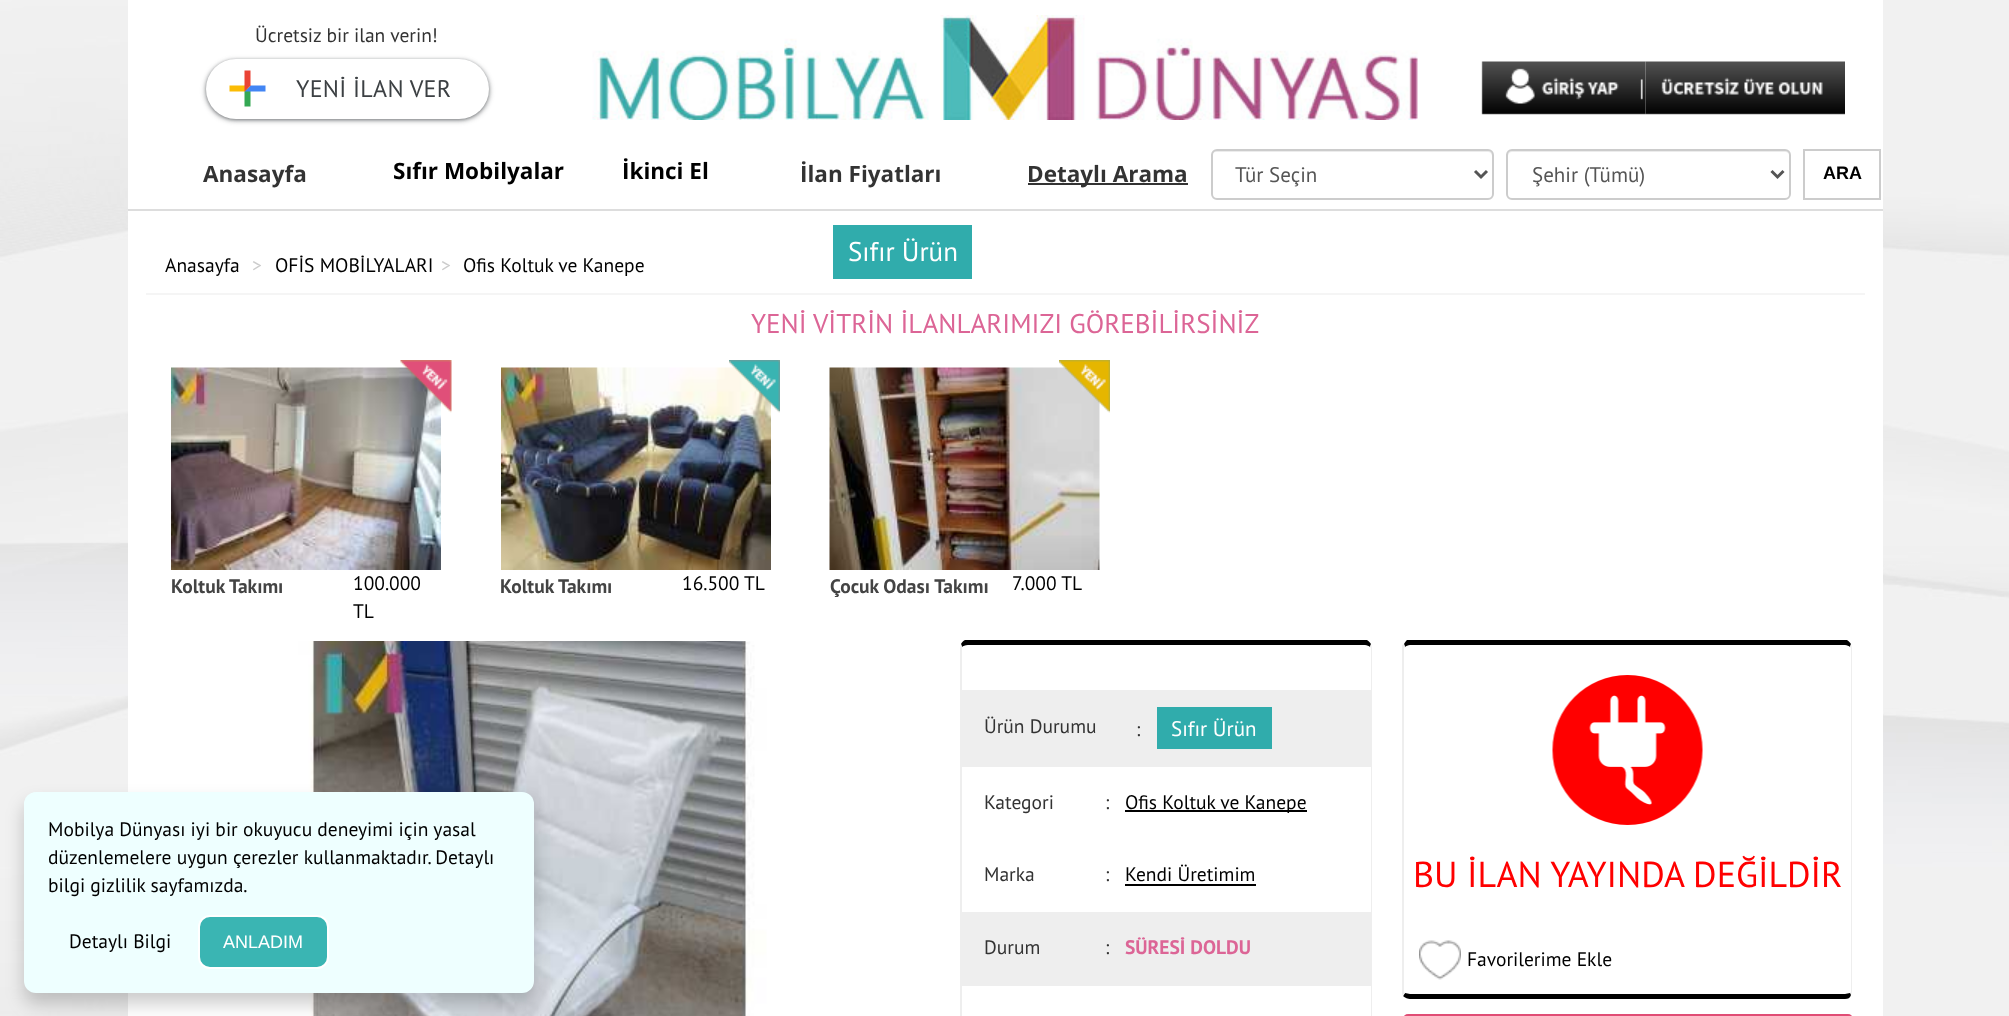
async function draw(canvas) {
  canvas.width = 2009;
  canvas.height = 1016;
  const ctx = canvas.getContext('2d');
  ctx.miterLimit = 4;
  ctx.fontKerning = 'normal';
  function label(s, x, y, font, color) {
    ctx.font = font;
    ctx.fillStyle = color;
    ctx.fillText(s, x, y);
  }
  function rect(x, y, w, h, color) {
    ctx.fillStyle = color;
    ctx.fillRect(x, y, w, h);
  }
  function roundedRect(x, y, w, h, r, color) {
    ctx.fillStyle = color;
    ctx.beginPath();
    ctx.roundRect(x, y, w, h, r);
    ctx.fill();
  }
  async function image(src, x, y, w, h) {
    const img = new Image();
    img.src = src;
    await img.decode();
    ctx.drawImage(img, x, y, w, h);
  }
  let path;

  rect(0, 0, 2009, 1016, '#fff');
  await image('assets/img1.png', 0, 0, 2009, 1016);
  rect(128, 0, 1755, 1016, '#fff');
  label('Ücretsiz bir ilan verin!', 255, 42, '19.5px PT Sans', '#333');
  ctx.fillStyle = '#3c404340';
  ctx.filter = 'blur(2px)';
  ctx.beginPath();
  ctx.roundRect(204, 59, 287, 63, 31.5);
  ctx.fill();
  ctx.filter = 'none';
  ctx.fillStyle = '#3c404380';
  ctx.filter = 'blur(1.5px)';
  ctx.beginPath();
  ctx.roundRect(206, 60, 283, 60, 30);
  ctx.fill();
  ctx.filter = 'none';
  roundedRect(206, 59, 283, 60, 30, '#fff');
  await image('assets/img2.png', 229, 70, 37, 37);
  ctx.letterSpacing = '0.25px';
  label('YENİ İLAN VER', 296, 97, '24px PT Sans', '#3c4043');
  await image('assets/img3.png', 592, 15, 826, 105);
  await image('assets/img4.png', 1481, 61, 165, 54);
  await image('assets/img5.png', 1645, 61, 200, 54);
  rect(128, 209, 1755, 2, '#ddd');
  ctx.letterSpacing = '0px';
  label('Anasayfa', 203, 182, 'bold 22.5px Open Sans', '#333');
  label('Sıfır Mobilyalar', 393, 179, 'bold 22.5px Open Sans', '#000');
  label('İkinci El', 622, 179, 'bold 22.5px Open Sans', '#000');
  label('İlan Fiyatları', 800, 182, 'bold 22.5px Open Sans', '#333');
  rect(1028, 183, 160, 2, '#333');
  label('Detaylı Arama', 1027, 182, 'bold 22.5px Open Sans', '#333');
  ctx.fillStyle = '#ececec';
  path = new Path2D('M1216 152H1488C1490 152 1492 154 1492 156V196C1493 195 1493 194 1493 193V155C1493 152 1491 150 1488 150H1217C1214 150 1212 152 1212 155V156C1212 154 1214 152 1216 152Z');
  ctx.fill(path);
  ctx.beginPath();
  ctx.roundRect(1212, 150, 281, 49, 5);
  ctx.strokeStyle = '#ccc';
  ctx.lineWidth = 2;
  ctx.stroke();
  path = new Path2D('M1475 171L1481 177L1487 171');
  ctx.strokeStyle = '#555';
  ctx.lineWidth = 3;
  ctx.stroke(path);
  label('Tür Seçin', 1235, 182, '21px PT Sans', '#555');
  ctx.fillStyle = '#ececec';
  path = new Path2D('M1512 152H1785C1787 152 1790 154 1790 156V155C1790 152 1788 150 1785 150H1513C1510 150 1508 152 1508 155V156C1508 154 1510 152 1512 152Z');
  ctx.fill(path);
  ctx.beginPath();
  ctx.roundRect(1507, 150, 283, 49, 5);
  ctx.strokeStyle = '#ccc';
  ctx.lineWidth = 2;
  ctx.stroke();
  path = new Path2D('M1771.5 171L1777.5 177L1783.5 171');
  ctx.strokeStyle = '#555';
  ctx.lineWidth = 3;
  ctx.stroke(path);
  label('Şehir (Tümü)', 1532, 182, '21px PT Sans', '#555');
  ctx.strokeStyle = '#ccc';
  ctx.lineWidth = 2;
  ctx.strokeRect(1804, 150, 76, 49);
  label('ARA', 1823, 179, 'bold 18px Liberation Sans', '#000');
  rect(146, 293, 1719, 2, '#f5f5f5');
  rect(833, 225, 139, 54, '#30acac');
  label('Sıfır Ürün', 848, 261, '27px PT Sans', '#fff');
  label('Anasayfa', 165, 272, '19.5px PT Sans', '#000');
  label('>', 252, 272, '19.5px PT Sans', '#ccc');
  label('OFİS MOBİLYALARI', 275, 272, '19.5px PT Sans', '#000');
  label('>', 441, 272, '19.5px PT Sans', '#ccc');
  label('Ofis Koltuk ve Kanepe', 463, 272, '19.5px PT Sans', '#000');
  label('YENİ VİTRİN İLANLARIMIZI GÖREBİLİRSİNİZ', 751, 333, '27px PT Sans', '#dc6596');
  await image('assets/img7.png', 171, 367, 270, 203);
  await image('assets/img6.png', 400, 360, 52, 53);
  label('Koltuk Takımı', 171, 593, 'bold 19.5px PT Sans', '#444');
  label('100.000', 353, 590, '19.5px PT Sans', '#000');
  label('TL', 353, 618, '19.5px PT Sans', '#000');
  await image('assets/img9.png', 501, 367, 270, 203);
  await image('assets/img8.png', 729, 360, 51, 53);
  label('Koltuk Takımı', 500, 593, 'bold 19.5px PT Sans', '#444');
  label('16.500 TL', 682, 590, '19.5px PT Sans', '#000');
  await image('assets/img11.png', 829, 367, 271, 203);
  await image('assets/img10.png', 1059, 360, 51, 53);
  label('Çocuk Odası Takımı', 830, 593, 'bold 19.5px PT Sans', '#444');
  label('7.000 TL', 1012, 590, '19.5px PT Sans', '#000');
  await image('assets/img12.png', 143, 641, 772, 375);
  path = new Path2D('M968 645C965 645 963 646 962 647L961 644C962 642 963 641 965 640H1367C1369 641 1370 643 1371 644L1370 647C1369 646 1367 645 1365 645Z');
  ctx.fill(path);
  ctx.fillStyle = '#eee';
  path = new Path2D('M1371 644L1372 648V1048V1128L1371 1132L1370 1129L1371 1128V648L1370 647Z');
  ctx.fill(path);
  path = new Path2D('M960 648V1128L961 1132L962 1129V647L961 644Z');
  ctx.fill(path);
  rect(962, 690, 409, 77, '#eee');
  label('Ürün Durumu', 984, 733, '19.5px PT Sans', '#333');
  label(':', 1136, 736, '19.5px PT Sans', '#333');
  rect(1157, 707, 115, 42, '#30acac');
  label('Sıfır Ürün', 1171, 736, '21px PT Sans', '#fff');
  label('Kategori', 984, 809, '19.5px PT Sans', '#333');
  label(':', 1105, 809, '19.5px PT Sans', '#333');
  rect(1125, 810, 182, 2, '#000');
  label('Ofis Koltuk ve Kanepe', 1125, 809, '19.5px PT Sans', '#000');
  label('Marka', 984, 881, '19.5px PT Sans', '#333');
  label(':', 1105, 881, '19.5px PT Sans', '#333');
  label('Kendi Üretimim', 1125, 881, '19.5px PT Sans', '#000');
  rect(1125, 884, 131, 2, '#000');
  rect(962, 912, 409, 74, '#eee');
  label('Durum', 984, 954, '19.5px PT Sans', '#333');
  label(':', 1105, 954, '19.5px PT Sans', '#333');
  label('SÜRESİ DOLDU', 1125, 954, 'bold 19.5px PT Sans', '#dc6596');
  ctx.fillStyle = '#000';
  path = new Path2D('M1410 645C1408 645 1406 646 1405 647L1404 644C1405 642 1406 641 1407 640H1847C1849 641 1850 643 1851 644L1850 647C1849 646 1847 645 1845 645Z');
  ctx.fill(path);
  ctx.fillStyle = '#eee';
  path = new Path2D('M1851 644L1852 648V992L1851 995L1850 993L1851 992V820V648L1850 647Z');
  ctx.fill(path);
  ctx.fillStyle = '#000';
  path = new Path2D('M1410 999H1845C1848 999 1850 998 1851 995L1850 993L1845 994H1410L1405 993L1403 996C1405 998 1408 999 1410 999Z');
  ctx.fill(path);
  ctx.fillStyle = '#eee';
  path = new Path2D('M1402 645L1404 644L1405 647L1404 648V820V992L1405 993L1403 996L1402 994Z');
  ctx.fill(path);
  await image('assets/img13.png', 1552, 675, 151, 150);
  label('BU İLAN YAYINDA DEĞİLDİR', 1413, 887, '36px PT Sans', '#f00');
  await image('assets/img14.png', 1419, 940, 42, 40);
  label('Favorilerime Ekle', 1467, 966, '19.5px PT Sans', '#000');
  roundedRect(1403, 1014, 450, 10, 8, '#e04d75');
  ctx.fillStyle = '#00000033';
  ctx.filter = 'blur(9px)';
  ctx.beginPath();
  ctx.roundRect(24, 803, 510, 201, 12);
  ctx.fill();
  ctx.filter = 'none';
  roundedRect(24, 792, 510, 201, 12, '#eff');
  label('Mobilya Dünyası iyi bir okuyucu deneyimi için yasal', 48, 836, '19.5px PT Sans', '#000');
  label('düzenlemelere uygun çerezler kullanmaktadır. Detaylı', 48, 864, '19.5px PT Sans', '#000');
  label('bilgi gizlilik sayfamızda.', 48, 892, '19.5px PT Sans', '#000');
  label('Detaylı Bilgi', 69, 948, '19.5px PT Sans', '#000');
  ctx.fillStyle = '#3ab5b3';
  ctx.beginPath();
  ctx.roundRect(199, 916, 129, 52, 11);
  ctx.fill();
  ctx.strokeStyle = '#fff';
  ctx.stroke();
  label('ANLADIM', 223, 948, '18px Liberation Sans', '#fff');
}

draw(document.querySelector('canvas'));
